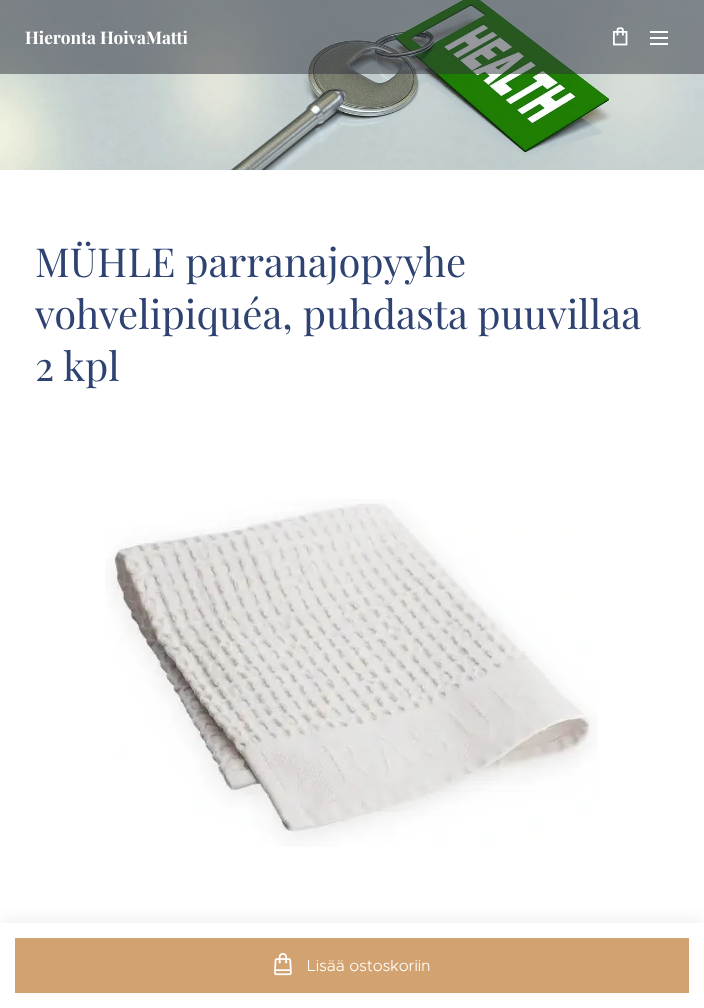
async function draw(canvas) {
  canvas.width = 704;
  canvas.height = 1008;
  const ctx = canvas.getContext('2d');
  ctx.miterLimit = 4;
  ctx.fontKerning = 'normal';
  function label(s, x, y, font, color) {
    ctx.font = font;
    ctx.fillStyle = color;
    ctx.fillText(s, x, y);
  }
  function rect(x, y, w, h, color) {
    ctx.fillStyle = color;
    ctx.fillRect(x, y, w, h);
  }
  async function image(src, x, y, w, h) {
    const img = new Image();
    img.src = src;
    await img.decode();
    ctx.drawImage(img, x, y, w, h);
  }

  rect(0, 0, 704, 1008, '#fff');
  await image('assets/img2.png', 0, 0, 704, 170);
  rect(0, 0, 704, 74, '#30323b80');
  label('Hieronta HoivaMatti', 25, 44, 'bold 17.25px Playfair Display', '#fff');
  await image('assets/img1.png', 613, 27, 15, 19);
  rect(650, 37, 18, 2, '#fff');
  rect(650, 31, 18, 2, '#fff');
  rect(650, 43, 18, 2, '#fff');
  label('MÜHLE parranajopyyhe', 35, 277, '40px Playfair Display', '#2e4371');
  label('vohvelipiquéa, puhdasta puuvillaa', 35, 329, '40px Playfair Display', '#2e4371');
  label('2 kpl', 35, 381, '40px Playfair Display', '#2e4371');
  await image('assets/img3.png', 105, 499, 493, 348);
  ctx.fillStyle = '#0000000f';
  ctx.filter = 'blur(7.5px)';
  ctx.beginPath();
  ctx.rect(0, 919, 704, 85);
  ctx.fill();
  ctx.filter = 'none';
  rect(0, 923, 704, 85, '#fff');
  rect(15, 938, 674, 55, '#d2a270');
  await image('assets/img4.png', 274, 953, 18, 23);
  label('Lisää ostoskoriin', 307, 971, '300 15.75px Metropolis', '#fff');
}

draw(document.querySelector('canvas'));
